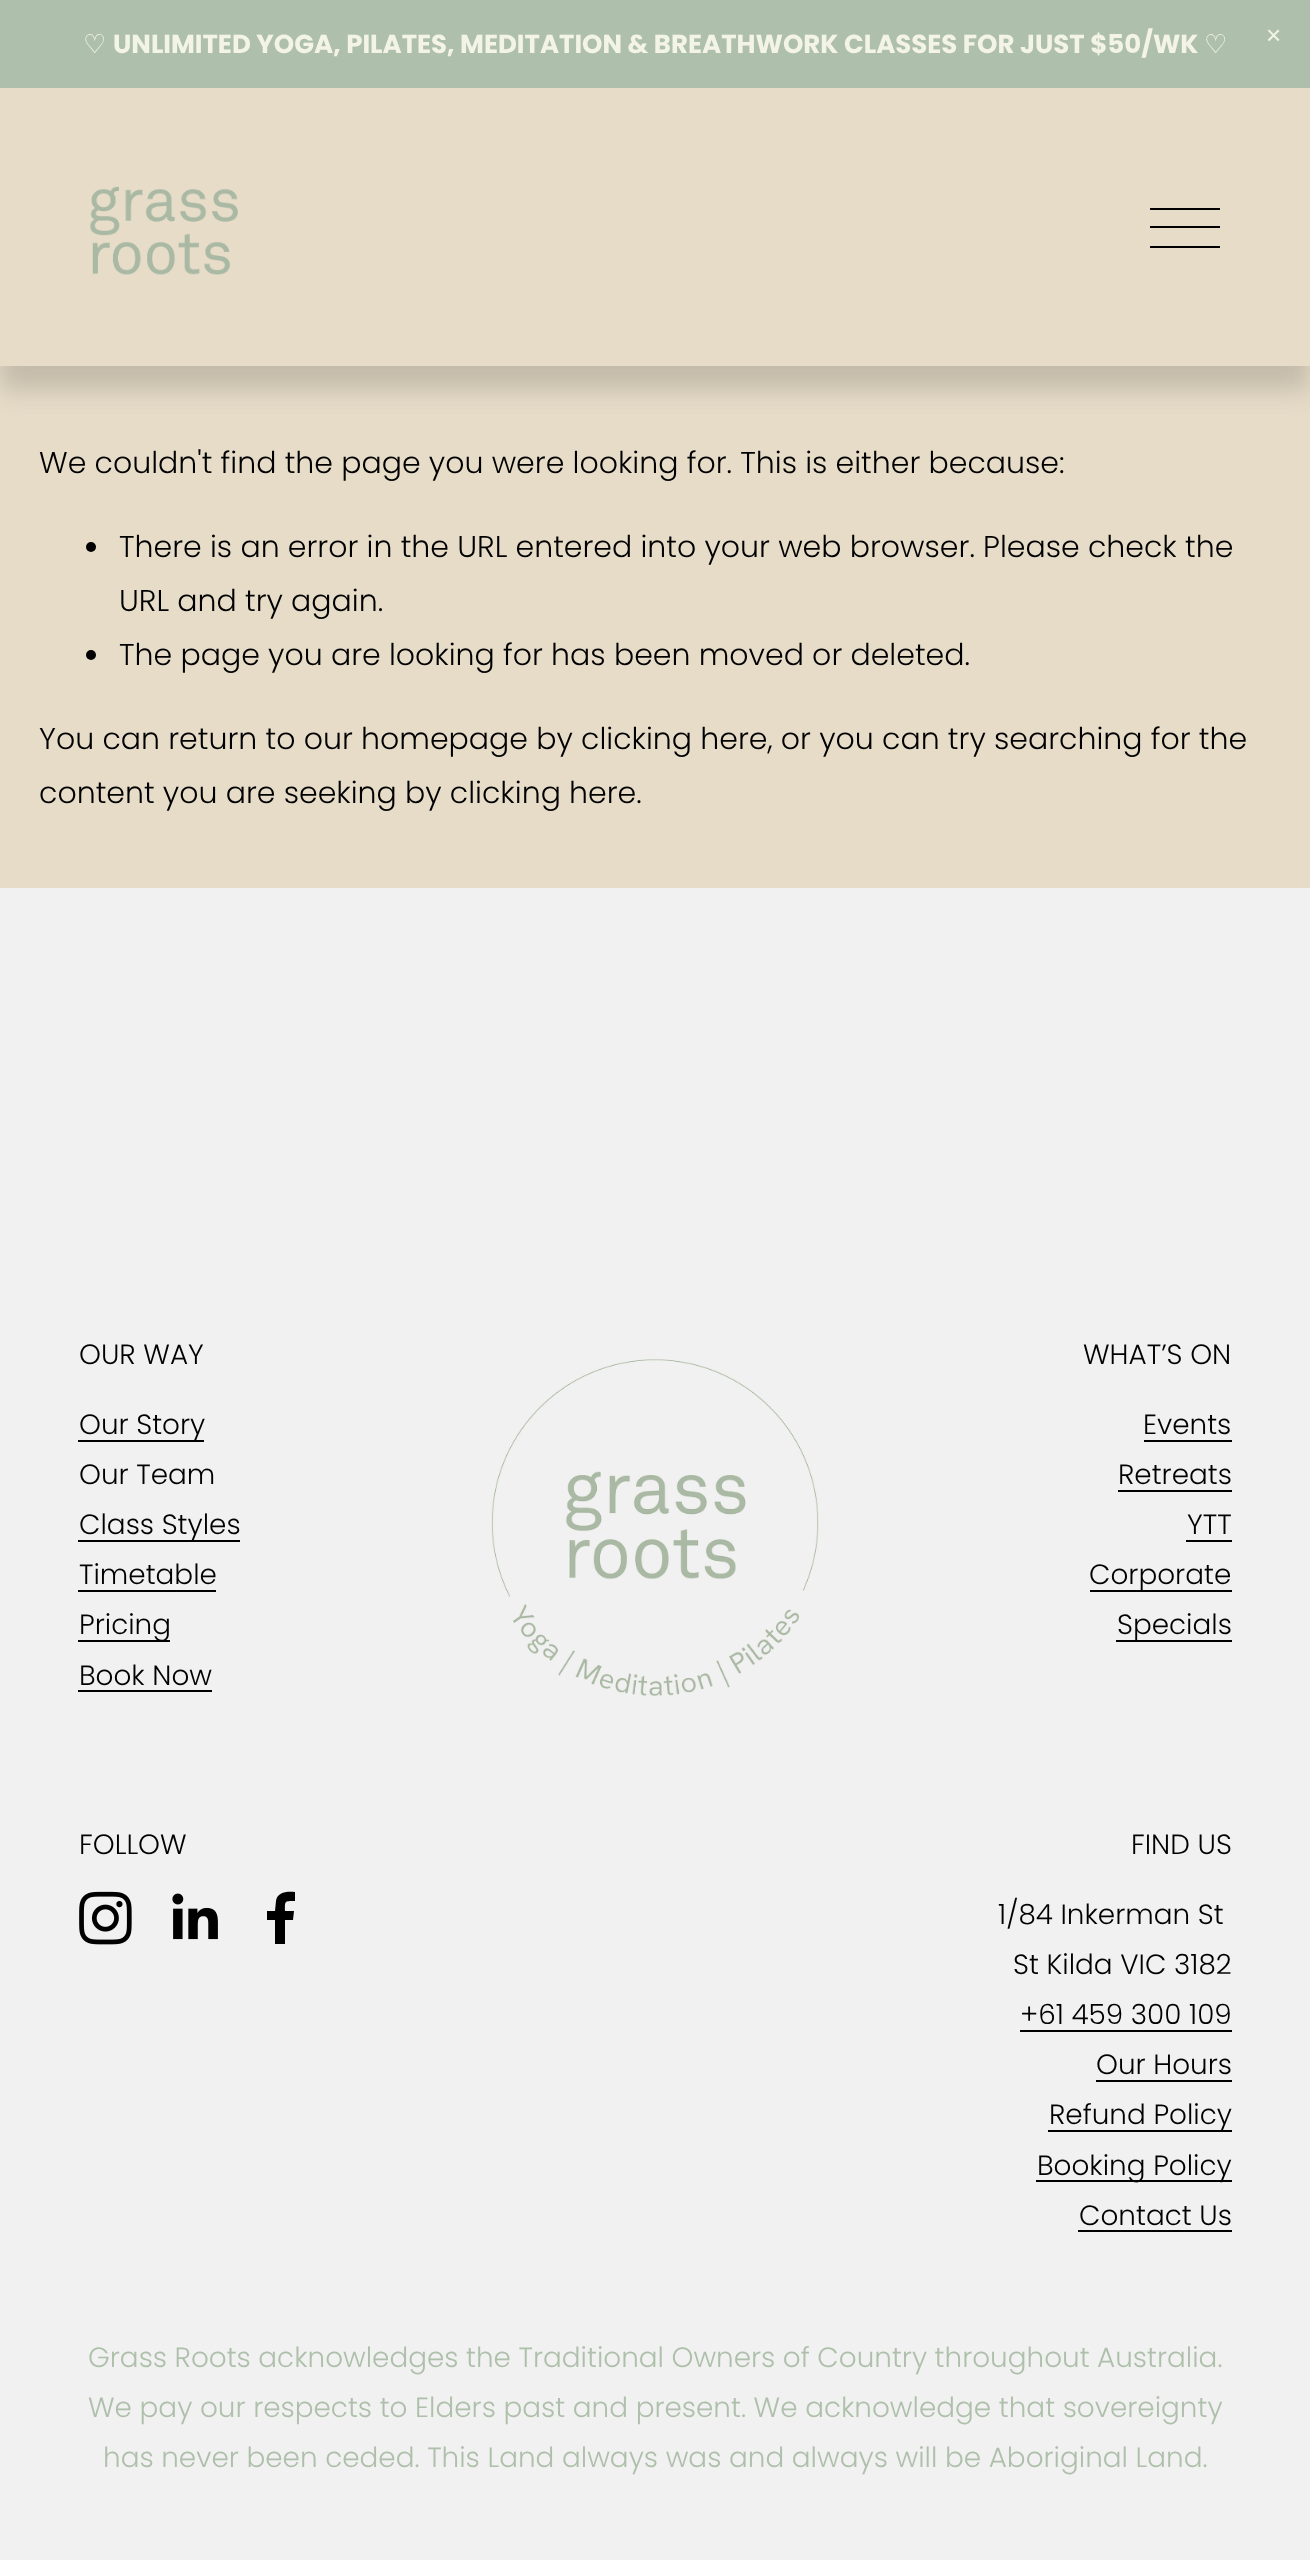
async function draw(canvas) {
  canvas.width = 1310;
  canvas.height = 2560;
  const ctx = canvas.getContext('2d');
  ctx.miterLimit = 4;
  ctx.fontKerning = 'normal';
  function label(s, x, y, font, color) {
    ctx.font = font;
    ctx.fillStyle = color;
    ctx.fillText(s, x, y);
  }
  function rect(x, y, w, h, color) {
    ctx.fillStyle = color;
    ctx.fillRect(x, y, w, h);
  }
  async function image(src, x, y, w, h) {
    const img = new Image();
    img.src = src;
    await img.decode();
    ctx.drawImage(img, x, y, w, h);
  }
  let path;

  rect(0, 0, 1310, 2560, '#e6dcc8');
  ctx.save();
  ctx.beginPath();
  ctx.rect(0, 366, 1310, 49);
  ctx.clip();
  ctx.fillStyle = '#c4bbaa';
  ctx.filter = 'blur(12px)';
  ctx.beginPath();
  ctx.rect(0, 112, 1310, 278);
  ctx.fill();
  ctx.filter = 'none';
  ctx.restore();
  rect(0, 0, 1310, 88, '#aec0ab');
  label('♡', 83, 53, '26px DejaVu Sans', '#f4f3e8');
  label('UNLIMITED YOGA, PILATES, MEDITATION & BREATHWORK CLASSES FOR JUST $50/WK', 113, 53, 'bold 26px Poppins', '#f4f3e8');
  label('♡', 1204, 53, '26px DejaVu Sans', '#f4f3e8');
  label('×', 1266, 44, '26px Liberation Sans', '#f4f3e8');
  await image('assets/img1.png', 89, 186, 149, 89);
  rect(1150, 208, 70, 2, '#000');
  rect(1150, 226, 70, 2, '#000');
  rect(1150, 246, 70, 2, '#000');
  label('We couldn\'t find the page you were looking for. This is either because:', 39, 473, '300 30px Poppins', '#000');
  ctx.beginPath();
  ctx.arc(91, 547, 5, 0, 2 * Math.PI);
  ctx.fill();
  label('There is an error in the URL entered into your web browser. Please check the', 119, 557, '300 30px Poppins', '#000');
  label('URL and try again.', 119, 611, '300 30px Poppins', '#000');
  ctx.beginPath();
  ctx.arc(91, 655, 5, 0, 2 * Math.PI);
  ctx.fill();
  label('The page you are looking for has been moved or deleted.', 119, 665, '300 30px Poppins', '#000');
  label('You can return to our homepage by clicking here, or you can try searching for the', 39, 749, '300 30px Poppins', '#000');
  label('content you are seeking by clicking here.', 39, 803, '300 30px Poppins', '#000');
  rect(0, 888, 1310, 1672, '#f2f1f1');
  label('OUR WAY', 79, 1364, '300 27.85px Poppins', '#000');
  label('WHAT’S ON', 1083, 1364, '300 27.85px Poppins', '#000');
  rect(78, 1440, 126, 2, '#000');
  label('Our Story', 79, 1434, '300 27.85px Poppins', '#000');
  label('Our Team', 79, 1484, '300 27.85px Poppins', '#000');
  rect(78, 1540, 162, 2, '#000');
  label('Class Styles', 79, 1534, '300 27.85px Poppins', '#000');
  label('Timetable', 79, 1584, '300 27.85px Poppins', '#000');
  rect(78, 1590, 138, 2, '#000');
  rect(78, 1640, 92, 2, '#000');
  label('Pricing', 79, 1634, '300 27.85px Poppins', '#000');
  label('Book Now', 79, 1685, '300 27.85px Poppins', '#000');
  rect(78, 1690, 134, 2, '#000');
  await image('assets/img2.png', 491, 1359, 328, 337);
  label('Events', 1143, 1434, '300 27.85px Poppins', '#000');
  rect(1144, 1440, 88, 2, '#000');
  label('Retreats', 1118, 1484, '300 27.85px Poppins', '#000');
  rect(1118, 1490, 114, 2, '#000');
  label('YTT', 1187, 1534, '300 27.85px Poppins', '#000');
  rect(1186, 1540, 46, 2, '#000');
  rect(1090, 1590, 142, 2, '#000');
  label('Corporate', 1089, 1584, '300 27.85px Poppins', '#000');
  rect(1116, 1640, 116, 2, '#000');
  label('Specials', 1117, 1634, '300 27.85px Poppins', '#000');
  label('FOLLOW', 79, 1854, '300 27.85px Poppins', '#000');
  label('FIND US', 1131, 1854, '300 27.85px Poppins', '#000');
  await image('assets/img3.png', 79, 1891, 53, 54);
  await image('assets/img4.png', 172, 1893, 46, 47);
  path = new Path2D('M285 1944V1920H293L294 1911H285C285 1901 284 1901 295 1901V1892C287 1891 277 1892 276 1901L275 1911H267V1920H275V1944Z');
  ctx.fill(path);
  label('1/84 Inkerman St', 998, 1924, '300 27.85px Poppins', '#000');
  label('St Kilda VIC 3182', 1013, 1974, '300 27.85px Poppins', '#000');
  label('+61 459 300 109', 1020, 2024, '300 27.85px Poppins', '#000');
  rect(1020, 2030, 212, 2, '#000');
  label('Our Hours', 1096, 2074, '300 27.85px Poppins', '#000');
  rect(1096, 2080, 136, 2, '#000');
  rect(1048, 2130, 184, 2, '#000');
  label('Refund Policy', 1049, 2124, '300 27.85px Poppins', '#000');
  rect(1036, 2180, 196, 2, '#000');
  label('Booking Policy', 1037, 2175, '300 27.85px Poppins', '#000');
  label('Contact Us', 1079, 2225, '300 27.85px Poppins', '#000');
  rect(1078, 2230, 154, 2, '#000');
  ctx.wordSpacing = '-0.1px';
  label('Grass Roots acknowledges the Traditional Owners of Country throughout Australia.', 88, 2367, '300 27.85px Poppins', '#aec0ab');
  ctx.wordSpacing = '0px';
  label('We pay our respects to Elders past and present. We acknowledge that sovereignty', 88, 2417, '300 27.85px Poppins', '#aec0ab');
  label('has never been ceded. This Land always was and always will be Aboriginal Land.', 103, 2467, '300 27.85px Poppins', '#aec0ab');
}

draw(document.querySelector('canvas'));
